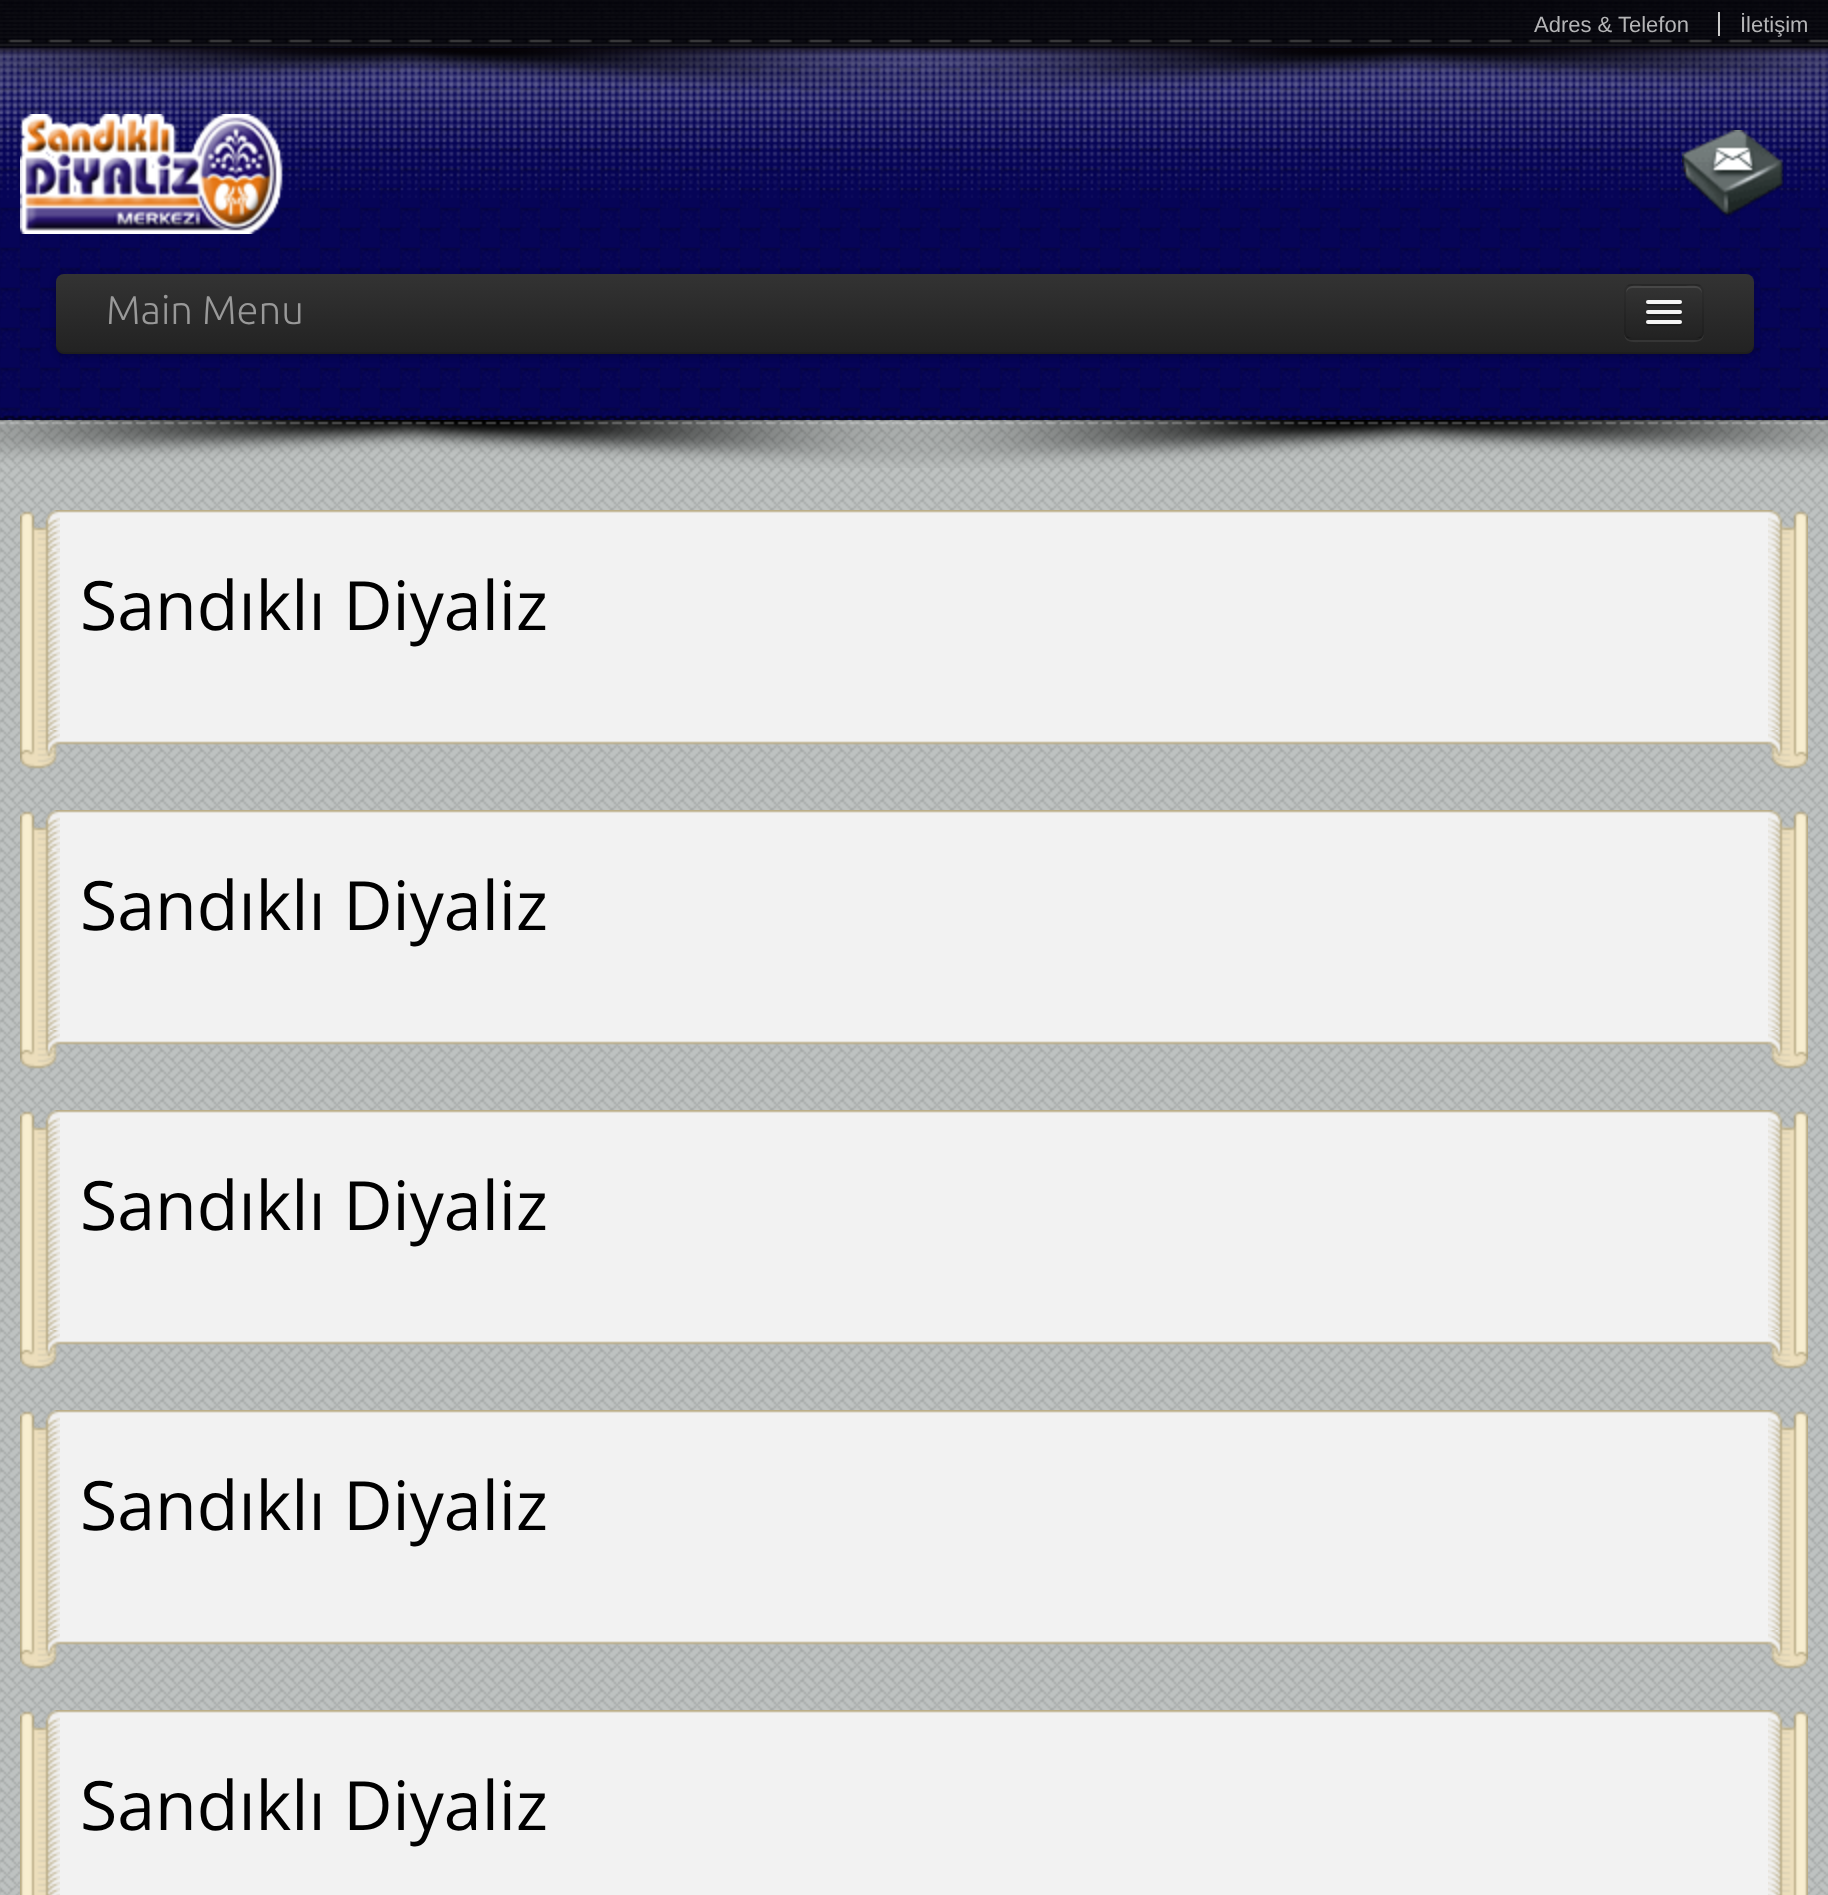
async function draw(canvas) {
  canvas.width = 1828;
  canvas.height = 1895;
  const ctx = canvas.getContext('2d');
  ctx.miterLimit = 4;
  ctx.fontKerning = 'normal';
  function label(s, x, y, font, color) {
    ctx.font = font;
    ctx.fillStyle = color;
    ctx.fillText(s, x, y);
  }
  function rect(x, y, w, h, color) {
    ctx.fillStyle = color;
    ctx.fillRect(x, y, w, h);
  }
  function roundedRect(x, y, w, h, r, color) {
    ctx.fillStyle = color;
    ctx.beginPath();
    ctx.roundRect(x, y, w, h, r);
    ctx.fill();
  }
  async function image(src, x, y, w, h) {
    const img = new Image();
    img.src = src;
    await img.decode();
    ctx.drawImage(img, x, y, w, h);
  }
  let gradient, path;

  rect(0, 0, 1828, 1895, '#060457');
  await image('assets/img1.png', 0, 0, 1828, 150);
  await image('assets/img3.png', 0, 48, 1828, 372);
  await image('assets/img4.png', 0, 48, 1828, 150);
  await image('assets/img5.png', 0, 48, 1828, 46);
  await image('assets/img2.png', 0, 0, 1828, 56);
  label('Adres & Telefon', 1534, 32, '22px Liberation Sans', '#b5b5b7');
  label('İletişim', 1740, 32, '22px Liberation Sans', '#b5b5b7');
  rect(1718, 12, 2, 24, '#ccc');
  await image('assets/img6.png', 20, 114, 263, 120);
  await image('assets/img7.png', 1682, 130, 102, 88);
  ctx.fillStyle = '#00000040';
  ctx.filter = 'blur(3px)';
  ctx.beginPath();
  ctx.roundRect(56, 276, 1698, 80, 8);
  ctx.fill();
  ctx.filter = 'none';
  gradient = ctx.createLinearGradient(905, 274, 905, 354);
  gradient.addColorStop(0, '#333');
  gradient.addColorStop(1, '#222');
  ctx.fillStyle = gradient;
  ctx.beginPath();
  ctx.roundRect(56, 274, 1698, 80, 8);
  ctx.fill();
  ctx.fillStyle = '#0000001a';
  path = new Path2D('M56 344C56 349 58 354 64 354H1746C1752 354 1754 349 1754 344C1754 348 1750 352 1746 352H64C60 352 56 348 56 344Z');
  ctx.fill(path);
  label('Main Menu', 106, 324, '300 40px Ubuntu', '#999');
  ctx.fillStyle = '#353535';
  path = new Path2D('M1624 332C1624 344 1633 342 1643 342H1685C1695 342 1704 344 1704 332C1704 336 1700 340 1696 340H1632C1628 340 1624 336 1624 332Z');
  ctx.fill(path);
  roundedRect(1624, 284, 80, 56, 8, '#2c2c2c');
  ctx.save();
  ctx.beginPath();
  ctx.roundRect(1624, 284, 80, 56, 8);
  ctx.clip();
  gradient = ctx.createLinearGradient(1664, 286, 1664, 338);
  gradient.addColorStop(0, '#333');
  gradient.addColorStop(1, '#222');
  ctx.fillStyle = gradient;
  ctx.fillRect(1624, 286, 80, 52);
  ctx.restore();
  ctx.fillStyle = '#474747';
  path = new Path2D('M1632 288H1696C1699 288 1702 291 1702 294C1702 284 1694 286 1685 286H1643C1634 286 1626 284 1626 294C1626 291 1629 288 1632 288Z');
  ctx.fill(path);
  path = new Path2D('M1701 337C1699.5 338.5 1698 339 1696 339H1632C1630 339 1628.5 338.5 1627 337');
  ctx.strokeStyle = '#00000040';
  ctx.lineWidth = 2;
  ctx.stroke(path);
  path = new Path2D('M1627 337C1625.5 335.5 1625 334 1625 332V292C1625 290 1625.5 288.5 1627 287C1628.5 285.5 1630 285 1632 285H1696C1698 285 1699.5 285.5 1701 287C1702.5 288.5 1703 290 1703 292V332C1703 334 1702.5 335.5 1701 337');
  ctx.strokeStyle = '#0000001a';
  ctx.stroke(path);
  ctx.fillStyle = '#222';
  path = new Path2D('M1646.5 303C1644 307 1653 306 1653.5 306H1674.5C1675 306 1684 307 1681.5 303C1681.5 303.5 1680.5 304 1680 304H1648C1647.5 304 1646.5 303.5 1646.5 303Z');
  ctx.fill(path);
  roundedRect(1646, 300, 36, 4, 2, '#f5f5f5');
  ctx.fillStyle = '#1f1f1f';
  path = new Path2D('M1646.5 313C1644 317 1653 316 1653.5 316H1674.5C1675 316 1684 317 1681.5 313C1681.5 313.5 1680.5 314 1680 314H1648C1647.5 314 1646.5 313.5 1646.5 313Z');
  ctx.fill(path);
  roundedRect(1646, 310, 36, 4, 2, '#f5f5f5');
  ctx.fillStyle = '#1d1d1d';
  path = new Path2D('M1646.5 323C1644 327 1653 326 1653.5 326H1674.5C1675 326 1684 327 1681.5 323C1681.5 323.5 1680.5 324 1680 324H1648C1647.5 324 1646.5 323.5 1646.5 323Z');
  ctx.fill(path);
  roundedRect(1646, 320, 36, 4, 2, '#f5f5f5');
  rect(0, 420, 1828, 1475, '#bec2c1');
  await image('assets/img9.png', 0, 420, 1828, 1475);
  await image('assets/img10.png', 0, 420, 1828, 48);
  await image('assets/img8.png', 0, 415, 1828, 10);
  rect(60, 550, 1708, 180, '#f2f2f2');
  await image('assets/img11.png', 20, 510, 40, 40);
  await image('assets/img12.png', 60, 510, 1708, 40);
  await image('assets/img13.png', 1768, 510, 40, 40);
  await image('assets/img14.png', 20, 550, 40, 180);
  label('Sandıklı Diyaliz', 80, 630, '68px Open Sans', '#000');
  await image('assets/img15.png', 1768, 550, 40, 180);
  await image('assets/img16.png', 20, 730, 40, 39);
  await image('assets/img17.png', 60, 730, 1708, 15);
  await image('assets/img18.png', 1768, 730, 40, 39);
  rect(60, 850, 1708, 180, '#f2f2f2');
  await image('assets/img11.png', 20, 810, 40, 40);
  await image('assets/img12.png', 60, 810, 1708, 40);
  await image('assets/img13.png', 1768, 810, 40, 40);
  await image('assets/img14.png', 20, 850, 40, 180);
  label('Sandıklı Diyaliz', 80, 930, '68px Open Sans', '#000');
  await image('assets/img15.png', 1768, 850, 40, 180);
  await image('assets/img16.png', 20, 1030, 40, 39);
  await image('assets/img17.png', 60, 1030, 1708, 15);
  await image('assets/img18.png', 1768, 1030, 40, 39);
  rect(60, 1150, 1708, 180, '#f2f2f2');
  await image('assets/img11.png', 20, 1110, 40, 40);
  await image('assets/img12.png', 60, 1110, 1708, 40);
  await image('assets/img13.png', 1768, 1110, 40, 40);
  await image('assets/img14.png', 20, 1150, 40, 180);
  label('Sandıklı Diyaliz', 80, 1230, '68px Open Sans', '#000');
  await image('assets/img15.png', 1768, 1150, 40, 180);
  await image('assets/img16.png', 20, 1330, 40, 39);
  await image('assets/img17.png', 60, 1330, 1708, 15);
  await image('assets/img18.png', 1768, 1330, 40, 39);
  rect(60, 1450, 1708, 180, '#f2f2f2');
  await image('assets/img11.png', 20, 1410, 40, 40);
  await image('assets/img12.png', 60, 1410, 1708, 40);
  await image('assets/img13.png', 1768, 1410, 40, 40);
  await image('assets/img14.png', 20, 1450, 40, 180);
  label('Sandıklı Diyaliz', 80, 1530, '68px Open Sans', '#000');
  await image('assets/img15.png', 1768, 1450, 40, 180);
  await image('assets/img16.png', 20, 1630, 40, 39);
  await image('assets/img17.png', 60, 1630, 1708, 15);
  await image('assets/img18.png', 1768, 1630, 40, 39);
  rect(60, 1750, 1708, 145, '#f2f2f2');
  await image('assets/img11.png', 20, 1710, 40, 40);
  await image('assets/img12.png', 60, 1710, 1708, 40);
  await image('assets/img13.png', 1768, 1710, 40, 40);
  await image('assets/img19.png', 20, 1750, 40, 145);
  label('Sandıklı Diyaliz', 80, 1830, '68px Open Sans', '#000');
  await image('assets/img20.png', 1768, 1750, 40, 145);
}

draw(document.querySelector('canvas'));
